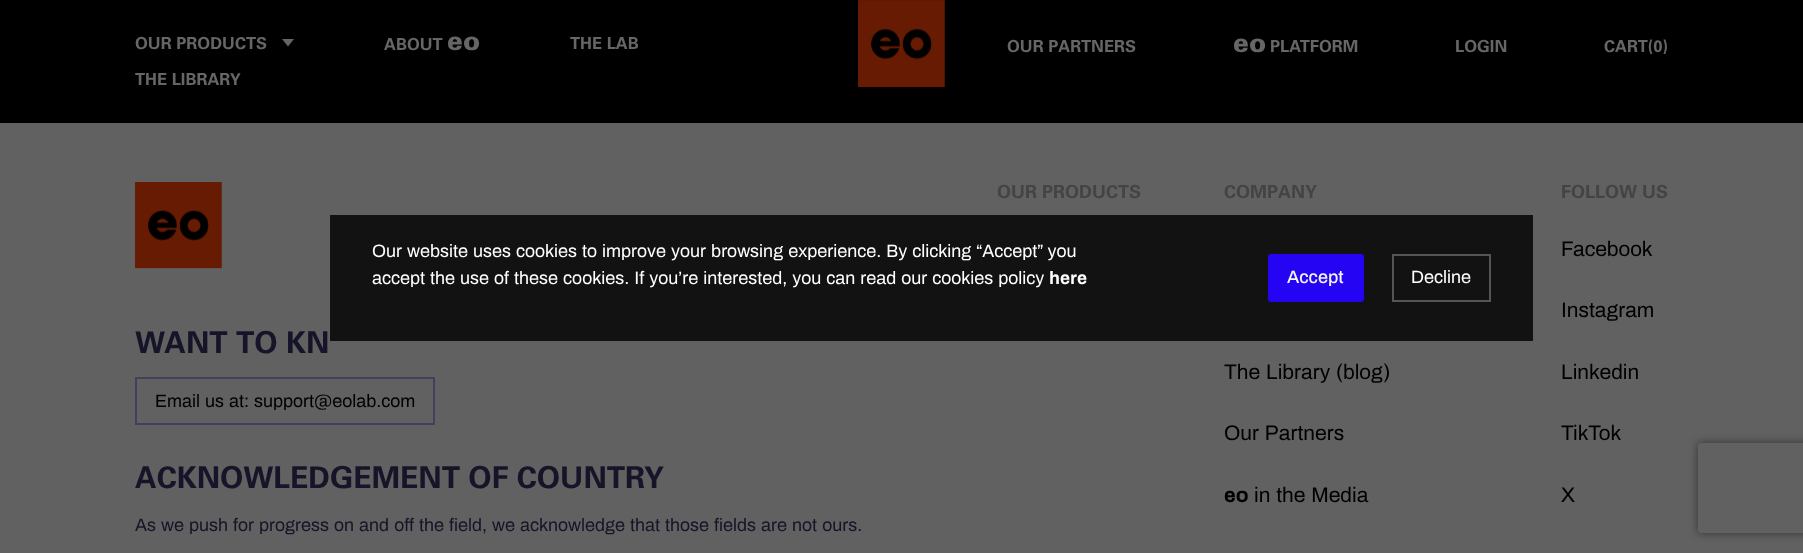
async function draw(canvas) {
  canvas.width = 1803;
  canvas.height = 553;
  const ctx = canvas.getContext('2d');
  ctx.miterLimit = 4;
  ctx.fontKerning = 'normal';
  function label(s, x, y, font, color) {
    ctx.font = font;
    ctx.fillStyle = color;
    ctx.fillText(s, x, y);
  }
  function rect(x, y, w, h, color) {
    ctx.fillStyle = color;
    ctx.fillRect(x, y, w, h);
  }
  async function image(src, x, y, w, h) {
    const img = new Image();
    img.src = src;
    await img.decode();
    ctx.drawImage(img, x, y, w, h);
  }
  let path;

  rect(0, 0, 1803, 553, '#616161');
  rect(0, 0, 1803, 123, '#000');
  await image('assets/img1.png', 858, 0, 87, 87);
  label('OUR PRODUCTS', 135, 49, 'bold 16.5px Univers', '#666');
  path = new Path2D('M282 39H294L288 46.5Z');
  ctx.fill(path);
  label('ABOUT', 384, 50, 'bold 16.5px Univers', '#666');
  label('eo', 447, 50, '900 26px Univers', '#666');
  label('THE LAB', 570, 49, 'bold 16.5px Univers', '#666');
  label('THE LIBRARY', 135, 85, 'bold 16.5px Univers', '#666');
  label('OUR PARTNERS', 1007, 52, 'bold 16.5px Univers', '#666');
  label('eo', 1233, 52, '900 26px Univers', '#666');
  label('PLATFORM', 1270, 52, 'bold 16.5px Univers', '#666');
  label('LOGIN', 1455, 52, 'bold 16.5px Univers', '#666');
  label('CART(0)', 1604, 52, 'bold 16.5px Univers', '#666');
  await image('assets/img2.png', 135, 182, 87, 87);
  label('WANT TO KN', 135, 353, 'bold 30px Univers', '#161428');
  ctx.strokeStyle = '#44405c';
  ctx.lineWidth = 2;
  ctx.strokeRect(136, 378, 298, 46);
  label('Email us at: support@eolab.com', 155, 407, '18px Archivo', '#000');
  label('ACKNOWLEDGEMENT OF COUNTRY', 135, 488, 'bold 30px Univers', '#161428');
  label('As we push for progress on and off the field, we acknowledge that those fields are not ours.', 135, 531, '18px Archivo', '#161428');
  label('OUR PRODUCTS', 997, 198, 'bold 18px Univers', '#444');
  label('COMPANY', 1224, 198, 'bold 18px Univers', '#444');
  label('The Library (blog)', 1224, 379, '21px Archivo', '#000');
  label('Our Partners', 1224, 440, '21px Archivo', '#000');
  label('eo', 1224, 502, 'bold 21px Archivo', '#000');
  label('in the Media', 1254, 502, '21px Archivo', '#000');
  label('FOLLOW US', 1561, 198, 'bold 18px Univers', '#444');
  label('Facebook', 1561, 256, '21px Archivo', '#000');
  label('Instagram', 1561, 317, '21px Archivo', '#000');
  label('Linkedin', 1561, 379, '21px Archivo', '#000');
  label('TikTok', 1561, 440, '21px Archivo', '#000');
  label('X', 1561, 502, '21px Archivo', '#000');
  rect(330, 215, 1203, 126, '#121212');
  label('Our website uses cookies to improve your browsing experience. By clicking “Accept” you', 372, 257, '18px Archivo', '#fff');
  label('accept the use of these cookies. If you’re interested, you can read our cookies policy', 372, 284, '18px Archivo', '#fff');
  label('here', 1049, 284, 'bold 18px Archivo', '#fff');
  ctx.fillStyle = '#2404f2';
  ctx.beginPath();
  ctx.roundRect(1269, 255, 94, 46, 2);
  ctx.fill();
  ctx.strokeStyle = '#2404f2';
  ctx.stroke();
  label('Accept', 1287, 283, '500 18px Archivo', '#f3f3f3');
  ctx.strokeStyle = '#555';
  ctx.strokeRect(1393, 255, 97, 46);
  label('Decline', 1411, 283, '18px Archivo', '#fff');
  ctx.save();
  path = new Path2D('M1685 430H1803V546H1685ZM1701 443H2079C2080.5 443 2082 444.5 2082 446V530C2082 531.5 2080.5 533 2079 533H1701C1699.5 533 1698 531.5 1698 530V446C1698 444.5 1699.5 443 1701 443Z');
  ctx.clip(path, 'evenodd');
  ctx.fillStyle = '#333';
  ctx.filter = 'blur(4px)';
  ctx.beginPath();
  ctx.roundRect(1698, 443, 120, 90, 3);
  ctx.fill();
  ctx.filter = 'none';
  ctx.restore();
}

draw(document.querySelector('canvas'));
